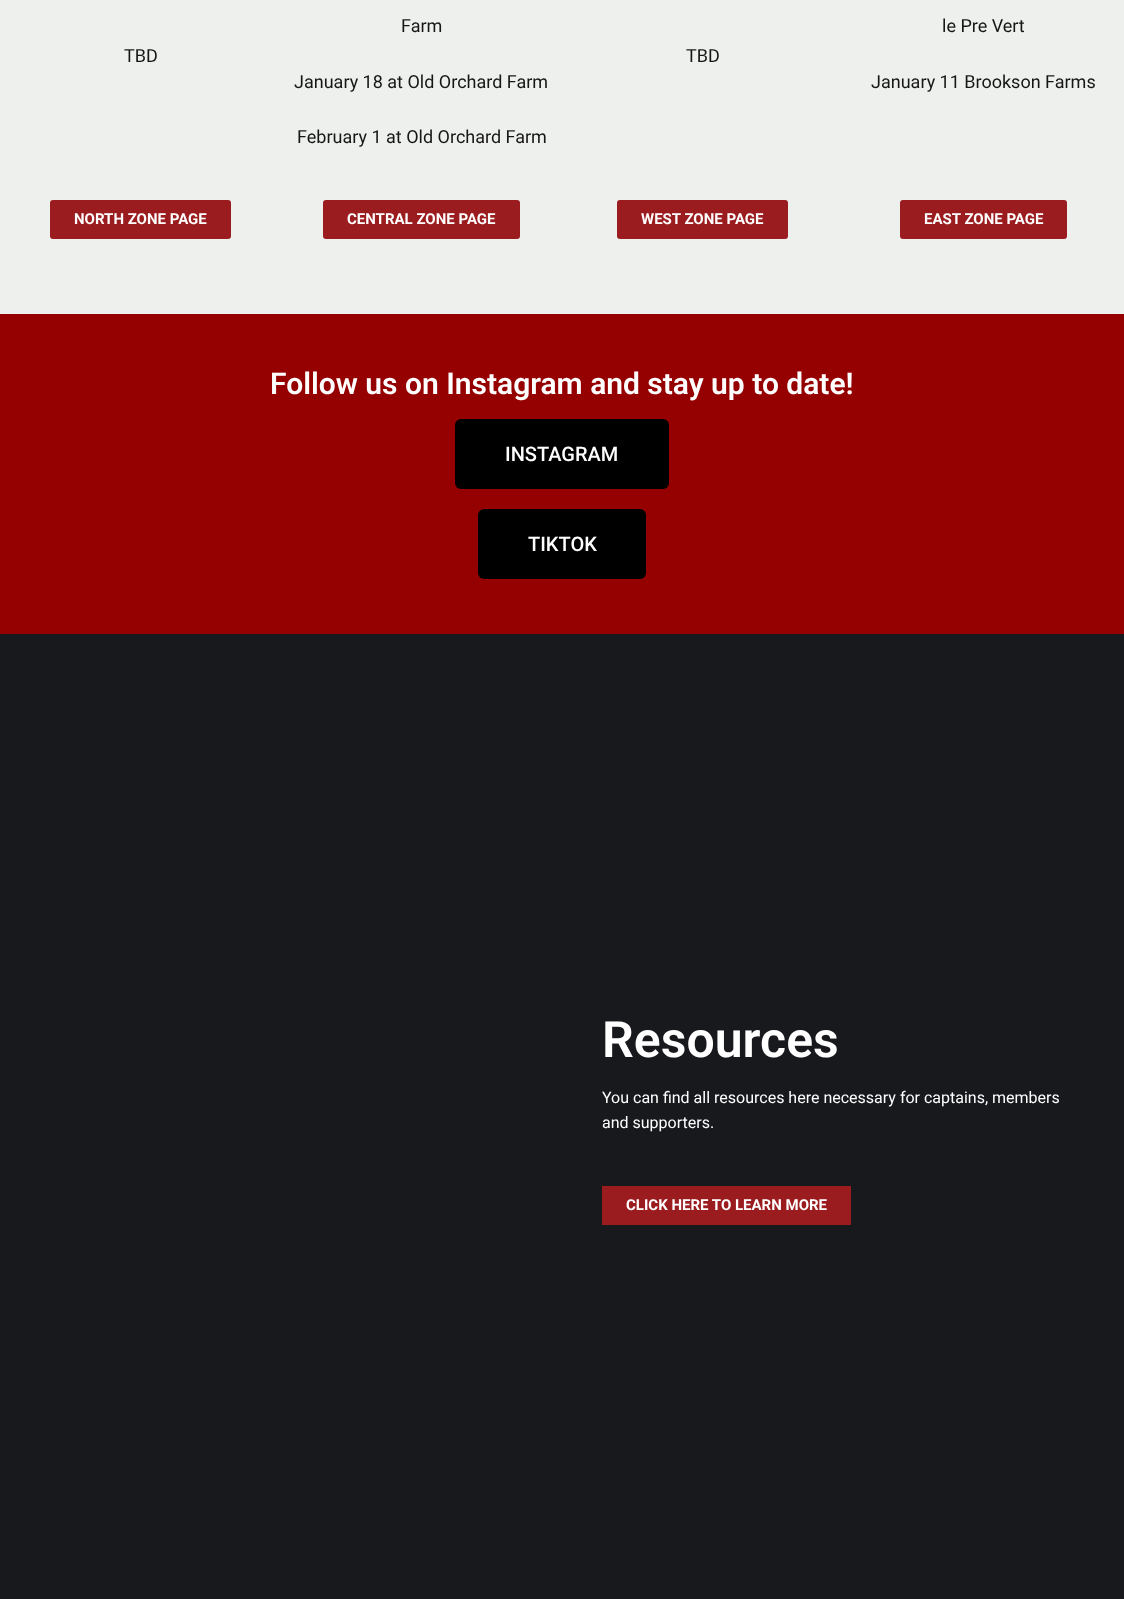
async function draw(canvas) {
  canvas.width = 1124;
  canvas.height = 1599;
  const ctx = canvas.getContext('2d');
  ctx.miterLimit = 4;
  ctx.fontKerning = 'normal';
  function label(s, x, y, font, color) {
    ctx.font = font;
    ctx.fillStyle = color;
    ctx.fillText(s, x, y);
  }
  function rect(x, y, w, h, color) {
    ctx.fillStyle = color;
    ctx.fillRect(x, y, w, h);
  }
  function roundedRect(x, y, w, h, r, color) {
    ctx.fillStyle = color;
    ctx.beginPath();
    ctx.roundRect(x, y, w, h, r);
    ctx.fill();
  }

  rect(0, 0, 1124, 1599, '#eef0ed');
  label('TBD', 124, 62, '18px Roboto', '#161616');
  label('Farm', 401, 32, '18px Roboto', '#161616');
  label('January 18 at Old Orchard Farm', 294, 88, '18px Roboto', '#161616');
  label('February 1 at Old Orchard Farm', 297, 143, '18px Roboto', '#161616');
  label('TBD', 686, 62, '18px Roboto', '#161616');
  label('le Pre Vert', 942, 32, '18px Roboto', '#161616');
  label('January 11 Brookson Farms', 871, 88, '18px Roboto', '#161616');
  roundedRect(50, 200, 181, 39, 3, '#9b1c1f');
  label('NORTH ZONE PAGE', 74, 224, 'bold 15px Roboto', '#fff');
  roundedRect(323, 200, 197, 39, 3, '#9b1c1f');
  label('CENTRAL ZONE PAGE', 347, 224, 'bold 15px Roboto', '#fff');
  roundedRect(617, 200, 171, 39, 3, '#9b1c1f');
  label('WEST ZONE PAGE', 641, 224, 'bold 15px Roboto', '#fff');
  roundedRect(900, 200, 167, 39, 3, '#9b1c1f');
  label('EAST ZONE PAGE', 924, 224, 'bold 15px Roboto', '#fff');
  rect(0, 314, 1124, 320, '#950101');
  label('Follow us on Instagram and stay up to date!', 270, 394, '600 30px Roboto', '#fff');
  roundedRect(455, 419, 214, 70, 6, '#000');
  label('INSTAGRAM', 505, 461, '500 20px Roboto', '#fff');
  roundedRect(478, 509, 168, 70, 6, '#000');
  label('TIKTOK', 528, 551, '500 20px Roboto', '#fff');
  rect(0, 634, 1124, 965, '#18191d');
  label('Resources', 602, 1057, '600 50px Roboto', '#fff');
  label('You can find all resources here necessary for captains, members', 602, 1103, '16px Roboto', '#fff');
  label('and supporters.', 602, 1128, '16px Roboto', '#fff');
  rect(602, 1186, 249, 39, '#9b1c1f');
  label('CLICK HERE TO LEARN MORE', 626, 1210, 'bold 15px Roboto', '#fff');
}

draw(document.querySelector('canvas'));
